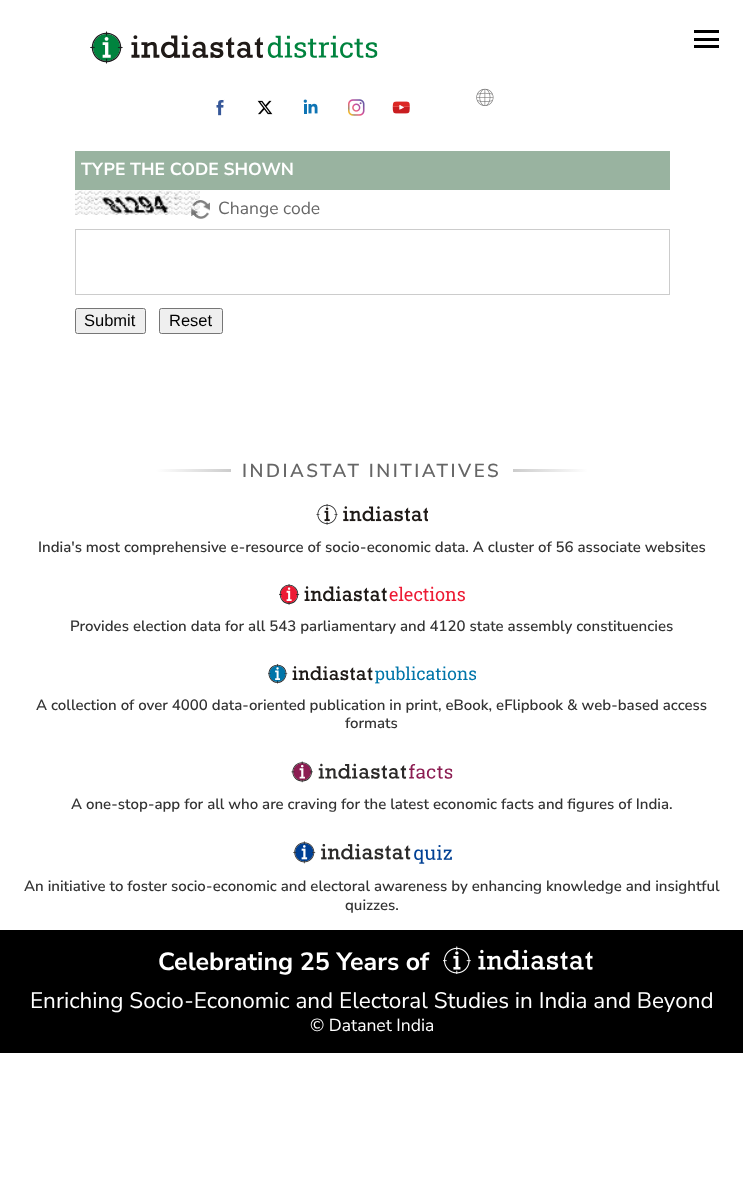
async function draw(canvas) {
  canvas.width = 743;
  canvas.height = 1198;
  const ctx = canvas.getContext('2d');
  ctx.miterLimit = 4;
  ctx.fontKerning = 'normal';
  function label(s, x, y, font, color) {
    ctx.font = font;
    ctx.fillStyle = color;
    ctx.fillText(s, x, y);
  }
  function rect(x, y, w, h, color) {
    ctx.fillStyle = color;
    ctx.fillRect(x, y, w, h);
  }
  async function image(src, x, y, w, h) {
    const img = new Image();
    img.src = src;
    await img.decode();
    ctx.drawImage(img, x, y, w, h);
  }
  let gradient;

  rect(0, 0, 743, 1198, '#fff');
  rect(694, 30, 25, 3, '#000');
  rect(694, 38, 25, 3, '#000');
  rect(694, 45, 25, 3, '#000');
  await image('assets/img1.png', 216, 99, 9, 17);
  await image('assets/img2.png', 257, 100, 16, 15);
  await image('assets/img3.png', 303, 99, 15, 15);
  await image('assets/img4.png', 348, 99, 17, 17);
  await image('assets/img5.png', 392, 101, 18, 13);
  await image('assets/img6.png', 476, 88, 18, 18);
  await image('assets/img7.png', 90, 31, 288, 33);
  rect(75, 151, 595, 39, '#99b3a0');
  label('TYPE THE CODE SHOWN', 81, 175, 'bold 17.5px Nunito Sans', '#fff');
  await image('assets/img8.png', 75, 190, 125, 25);
  await image('assets/img9.png', 191, 200, 19, 19);
  label('Change code', 218, 214, '17.5px Nunito Sans', '#666');
  ctx.strokeStyle = '#ccc';
  ctx.strokeRect(75.5, 229.5, 594, 65);
  ctx.fillStyle = '#efefef';
  ctx.beginPath();
  ctx.roundRect(75.5, 308.5, 70, 25, 2);
  ctx.fill();
  ctx.strokeStyle = '#767676';
  ctx.stroke();
  label('Submit', 84, 326, '16.5px Liberation Sans', '#000');
  ctx.fillStyle = '#efefef';
  ctx.beginPath();
  ctx.roundRect(159.5, 308.5, 63, 25, 2);
  ctx.fill();
  ctx.stroke();
  label('Reset', 169, 326, '16.5px Liberation Sans', '#000');
  gradient = ctx.createLinearGradient(156, 470, 231, 470);
  gradient.addColorStop(0, '#fff');
  gradient.addColorStop(1, '#ccc');
  ctx.fillStyle = gradient;
  ctx.fillRect(156, 469, 75, 3);
  ctx.letterSpacing = '2.5px';
  label('INDIASTAT INITIATIVES', 242, 477, '600 18.75px Nunito Sans', '#666');
  gradient = ctx.createLinearGradient(513, 470, 588, 470);
  gradient.addColorStop(0, '#ccc');
  gradient.addColorStop(1, '#fff');
  ctx.fillStyle = gradient;
  ctx.fillRect(513, 469, 75, 3);
  await image('assets/img10.png', 316, 504, 112, 21);
  ctx.letterSpacing = '0px';
  label('India\'s most comprehensive e-resource of socio-economic data. A cluster of 56 associate websites', 38, 552, '600 15px Nunito Sans', '#333');
  await image('assets/img11.png', 279, 584, 186, 21);
  label('Provides election data for all 543 parliamentary and 4120 state assembly constituencies', 70, 631, '600 15px Nunito Sans', '#333');
  await image('assets/img12.png', 268, 664, 208, 20);
  label('A collection of over 4000 data-oriented publication in print, eBook, eFlipbook & web-based access', 36, 710, '600 15px Nunito Sans', '#333');
  label('formats', 345, 728, '600 15px Nunito Sans', '#333');
  await image('assets/img13.png', 291, 761, 162, 22);
  label('A one-stop-app for all who are craving for the latest economic facts and figures of India.', 71, 809, '600 15px Nunito Sans', '#333');
  await image('assets/img14.png', 293, 841, 159, 23);
  label('An initiative to foster socio-economic and electoral awareness by enhancing knowledge and insightful', 24, 891, '600 15px Nunito Sans', '#333');
  label('quizzes.', 345, 910, '600 15px Nunito Sans', '#333');
  rect(0, 930, 743, 123, '#000');
  label('Celebrating 25 Years of', 158, 970, 'bold 25px Nunito Sans', '#fff');
  await image('assets/img15.png', 443, 946, 150, 28);
  label('Enriching Socio-Economic and Electoral Studies in India and Beyond', 30, 1008, '22.5px Nunito Sans', '#fff');
  label('© Datanet India', 310, 1031, '17.5px Nunito Sans', '#fff');
}

draw(document.querySelector('canvas'));
